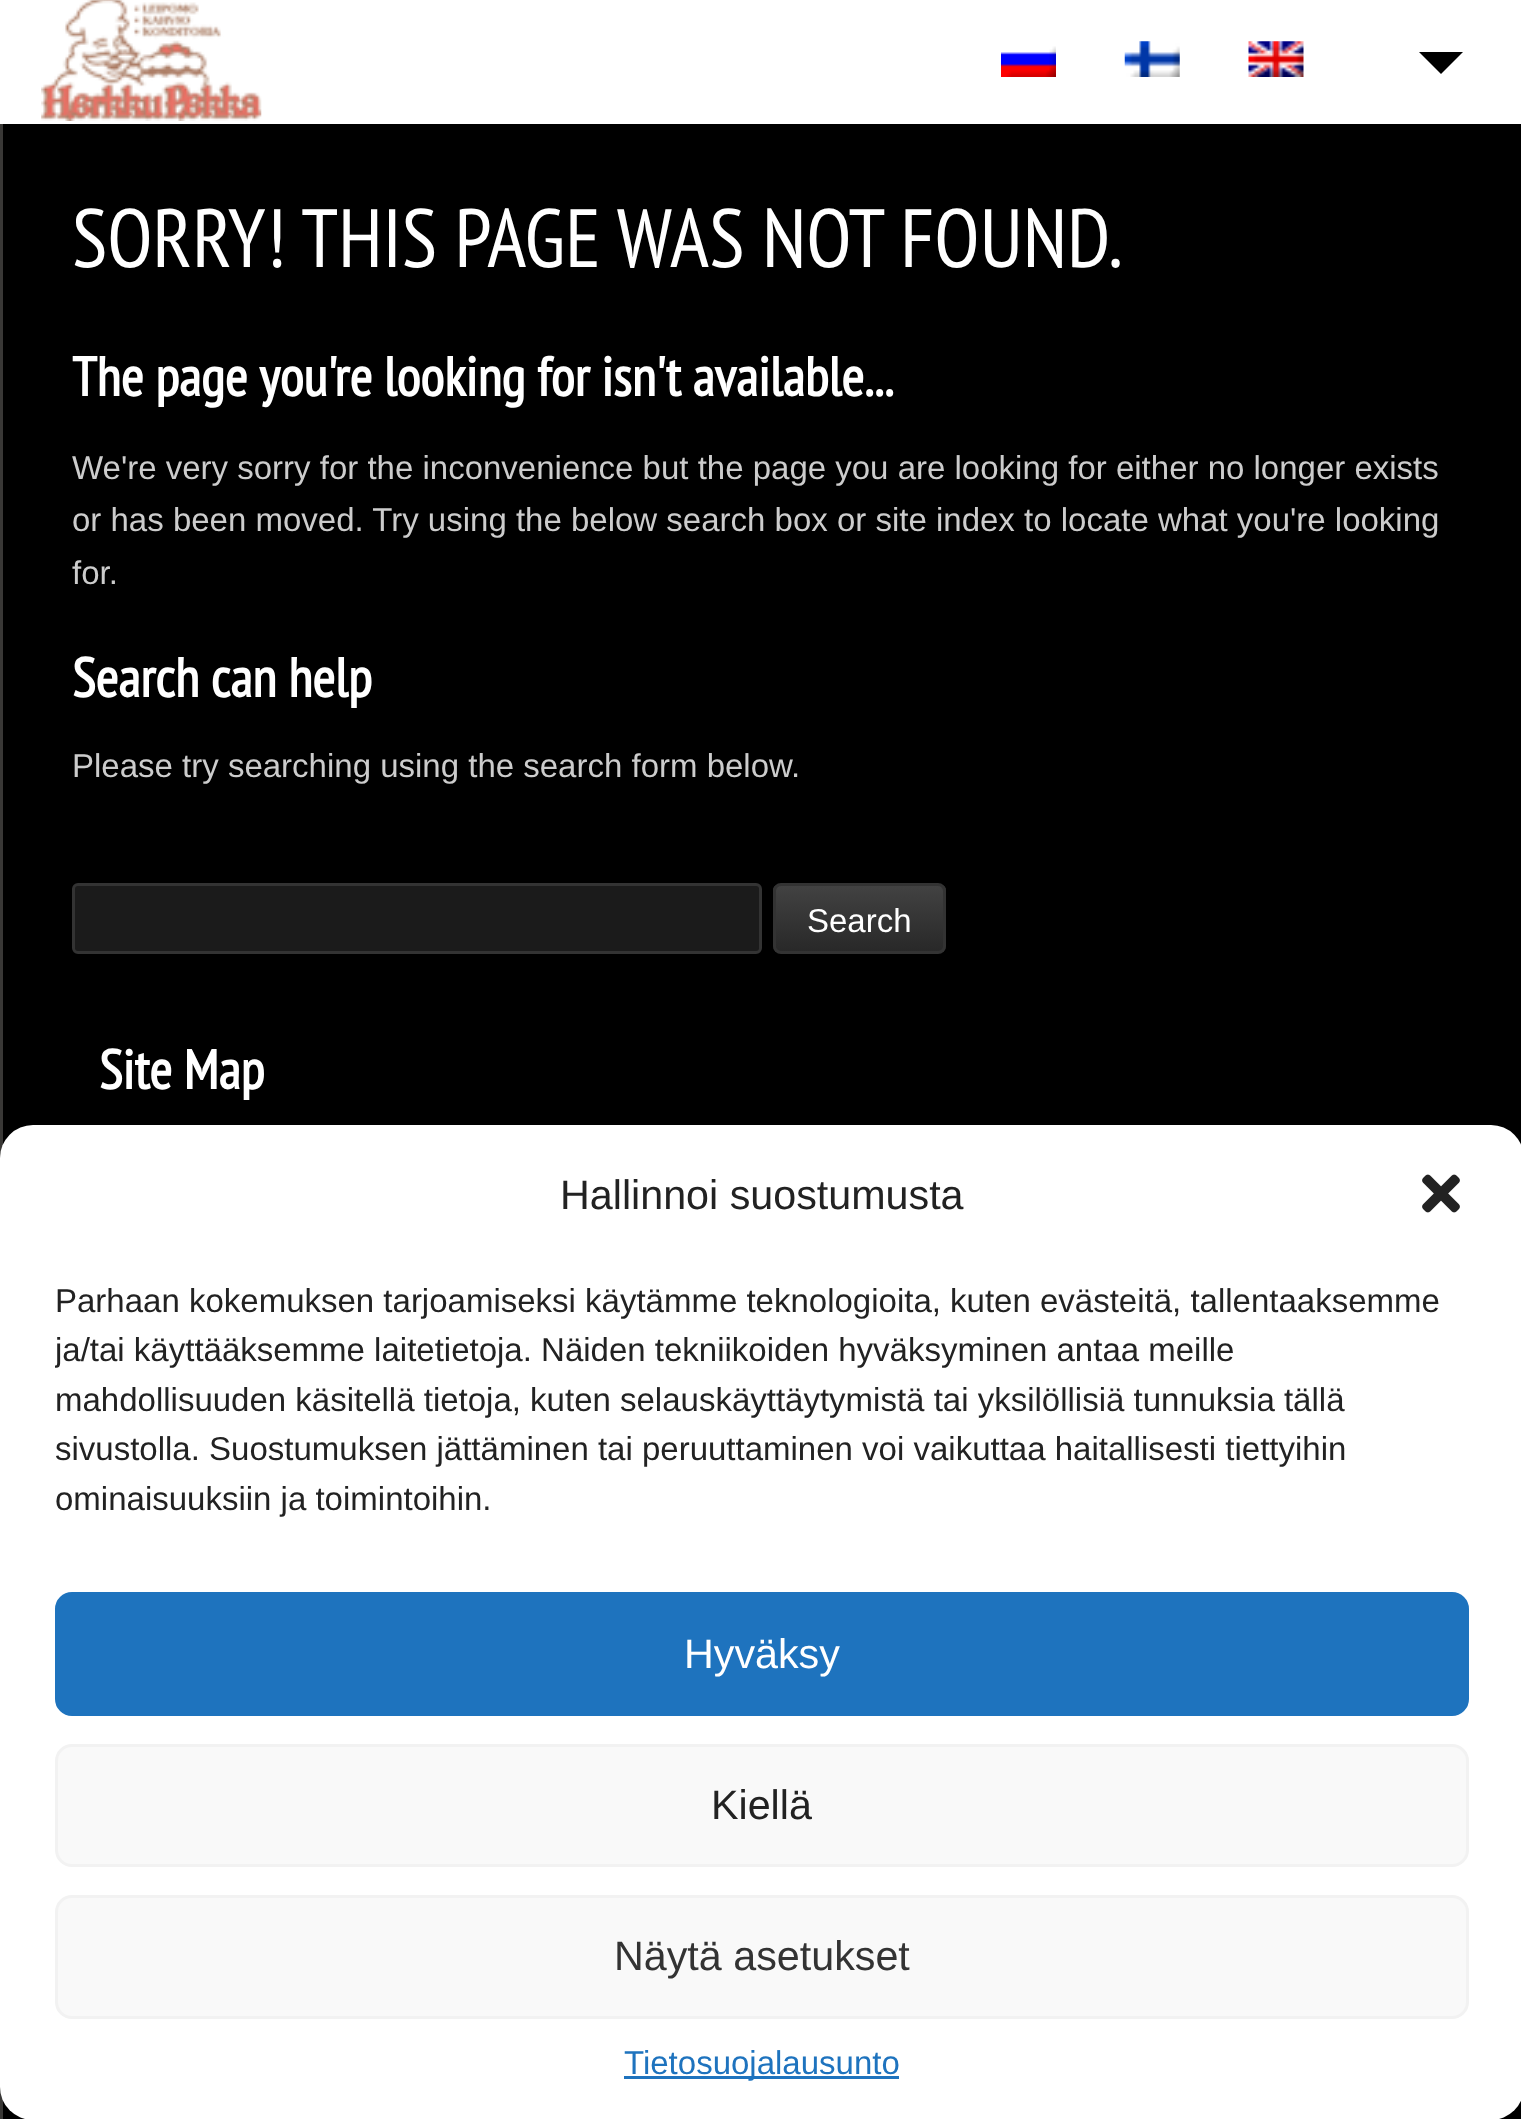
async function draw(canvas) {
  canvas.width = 1521;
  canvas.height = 2119;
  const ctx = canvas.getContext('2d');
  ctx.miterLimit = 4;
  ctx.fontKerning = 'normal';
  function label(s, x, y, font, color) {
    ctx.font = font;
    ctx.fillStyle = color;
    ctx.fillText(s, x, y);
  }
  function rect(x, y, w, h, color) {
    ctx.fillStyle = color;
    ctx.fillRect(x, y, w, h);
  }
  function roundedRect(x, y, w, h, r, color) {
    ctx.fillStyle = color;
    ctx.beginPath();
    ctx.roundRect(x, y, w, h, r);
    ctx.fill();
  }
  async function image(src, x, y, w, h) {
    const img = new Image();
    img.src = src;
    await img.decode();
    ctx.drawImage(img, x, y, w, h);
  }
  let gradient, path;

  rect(0, 0, 1521, 2119, '#000');
  rect(0, 0, 1521, 124, '#fff');
  await image('assets/img1.png', 41, 0, 221, 121);
  await image('assets/img2.png', 1001, 46, 55, 31);
  await image('assets/img3.png', 1124, 41, 56, 36);
  await image('assets/img4.png', 1248, 41, 56, 36);
  ctx.fillStyle = '#000';
  path = new Path2D('M1419 52H1463L1441 74Z');
  ctx.fill(path);
  rect(0, 124, 3, 1995, '#393836');
  label('SORRY! THIS PAGE WAS NOT FOUND.', 72, 267, '82.5px PT Sans Narrow', '#fff');
  label('The page you\'re looking for isn\'t available...', 72, 396, 'bold 55px PT Sans Narrow', '#fff');
  label('We\'re very sorry for the inconvenience but the page you are looking for either no longer exists', 72, 479, '33px Liberation Sans', '#ccc');
  label('or has been moved. Try using the below search box or site index to locate what you\'re looking', 72, 531, '33px Liberation Sans', '#ccc');
  label('for.', 72, 584, '33px Liberation Sans', '#ccc');
  label('Search can help', 72, 697, 'bold 55px PT Sans Narrow', '#fff');
  label('Please try searching using the search form below.', 72, 777, '33px Liberation Sans', '#ccc');
  ctx.fillStyle = '#1b1b1b';
  ctx.beginPath();
  ctx.roundRect(73.5, 884.5, 687, 68, 4.5);
  ctx.fill();
  ctx.strokeStyle = '#333';
  ctx.lineWidth = 3;
  ctx.stroke();
  ctx.save();
  ctx.beginPath();
  ctx.roundRect(773, 883, 173, 71, 8);
  ctx.clip();
  gradient = ctx.createLinearGradient(776, 886, 776, 952);
  gradient.addColorStop(0, '#424242');
  gradient.addColorStop(1, '#282828');
  ctx.fillStyle = gradient;
  ctx.fillRect(773, 886, 173, 66);
  ctx.restore();
  ctx.beginPath();
  ctx.roundRect(774.5, 884.5, 170, 68, 6.5);
  ctx.stroke();
  label('Search', 807, 932, '33px Liberation Sans', '#fff');
  label('Site Map', 99, 1089, 'bold 55px PT Sans Narrow', '#fff');
  roundedRect(0, 1125, 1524, 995, 33, '#fff');
  label('Hallinnoi suostumusta', 560, 1209, '41.25px Liberation Sans', '#222');
  await image('assets/img5.png', 1422, 1174, 38, 39);
  label('Parhaan kokemuksen tarjoamiseksi käytämme teknologioita, kuten evästeitä, tallentaaksemme', 55, 1312, '33px Liberation Sans', '#222');
  ctx.save();
  ctx.beginPath();
  ctx.rect(55, 1276, 1414, 261);
  ctx.clip();
  label('ja/tai käyttääksemme laitetietoja. Näiden tekniikoiden hyväksyminen antaa meille', 55, 1361, '33px Liberation Sans', '#222');
  ctx.restore();
  label('mahdollisuuden käsitellä tietoja, kuten selauskäyttäytymistä tai yksilöllisiä tunnuksia tällä', 55, 1411, '33px Liberation Sans', '#222');
  label('sivustolla. Suostumuksen jättäminen tai peruuttaminen voi vaikuttaa haitallisesti tiettyihin', 55, 1460, '33px Liberation Sans', '#222');
  label('ominaisuuksiin ja toimintoihin.', 55, 1510, '33px Liberation Sans', '#222');
  ctx.fillStyle = '#1e73be';
  ctx.beginPath();
  ctx.roundRect(56.5, 1593.5, 1411, 121, 15.5);
  ctx.fill();
  ctx.strokeStyle = '#1e73be';
  ctx.stroke();
  label('Hyväksy', 684, 1668, '41.25px Liberation Sans', '#fff');
  ctx.fillStyle = '#f9f9f9';
  ctx.beginPath();
  ctx.roundRect(56.5, 1745.5, 1411, 120, 15.5);
  ctx.fill();
  ctx.strokeStyle = '#f2f2f2';
  ctx.stroke();
  label('Kiellä', 711, 1819, '41.25px Liberation Sans', '#222');
  ctx.fillStyle = '#f9f9f9';
  ctx.beginPath();
  ctx.roundRect(56.5, 1896.5, 1411, 121, 15.5);
  ctx.fill();
  ctx.stroke();
  label('Näytä asetukset', 614, 1970, '41.25px Liberation Sans', '#333');
  rect(624, 2076, 275, 3, '#1e73be');
  label('Tietosuojalausunto', 624, 2074, '33px Liberation Sans', '#1e73be');
}

draw(document.querySelector('canvas'));
